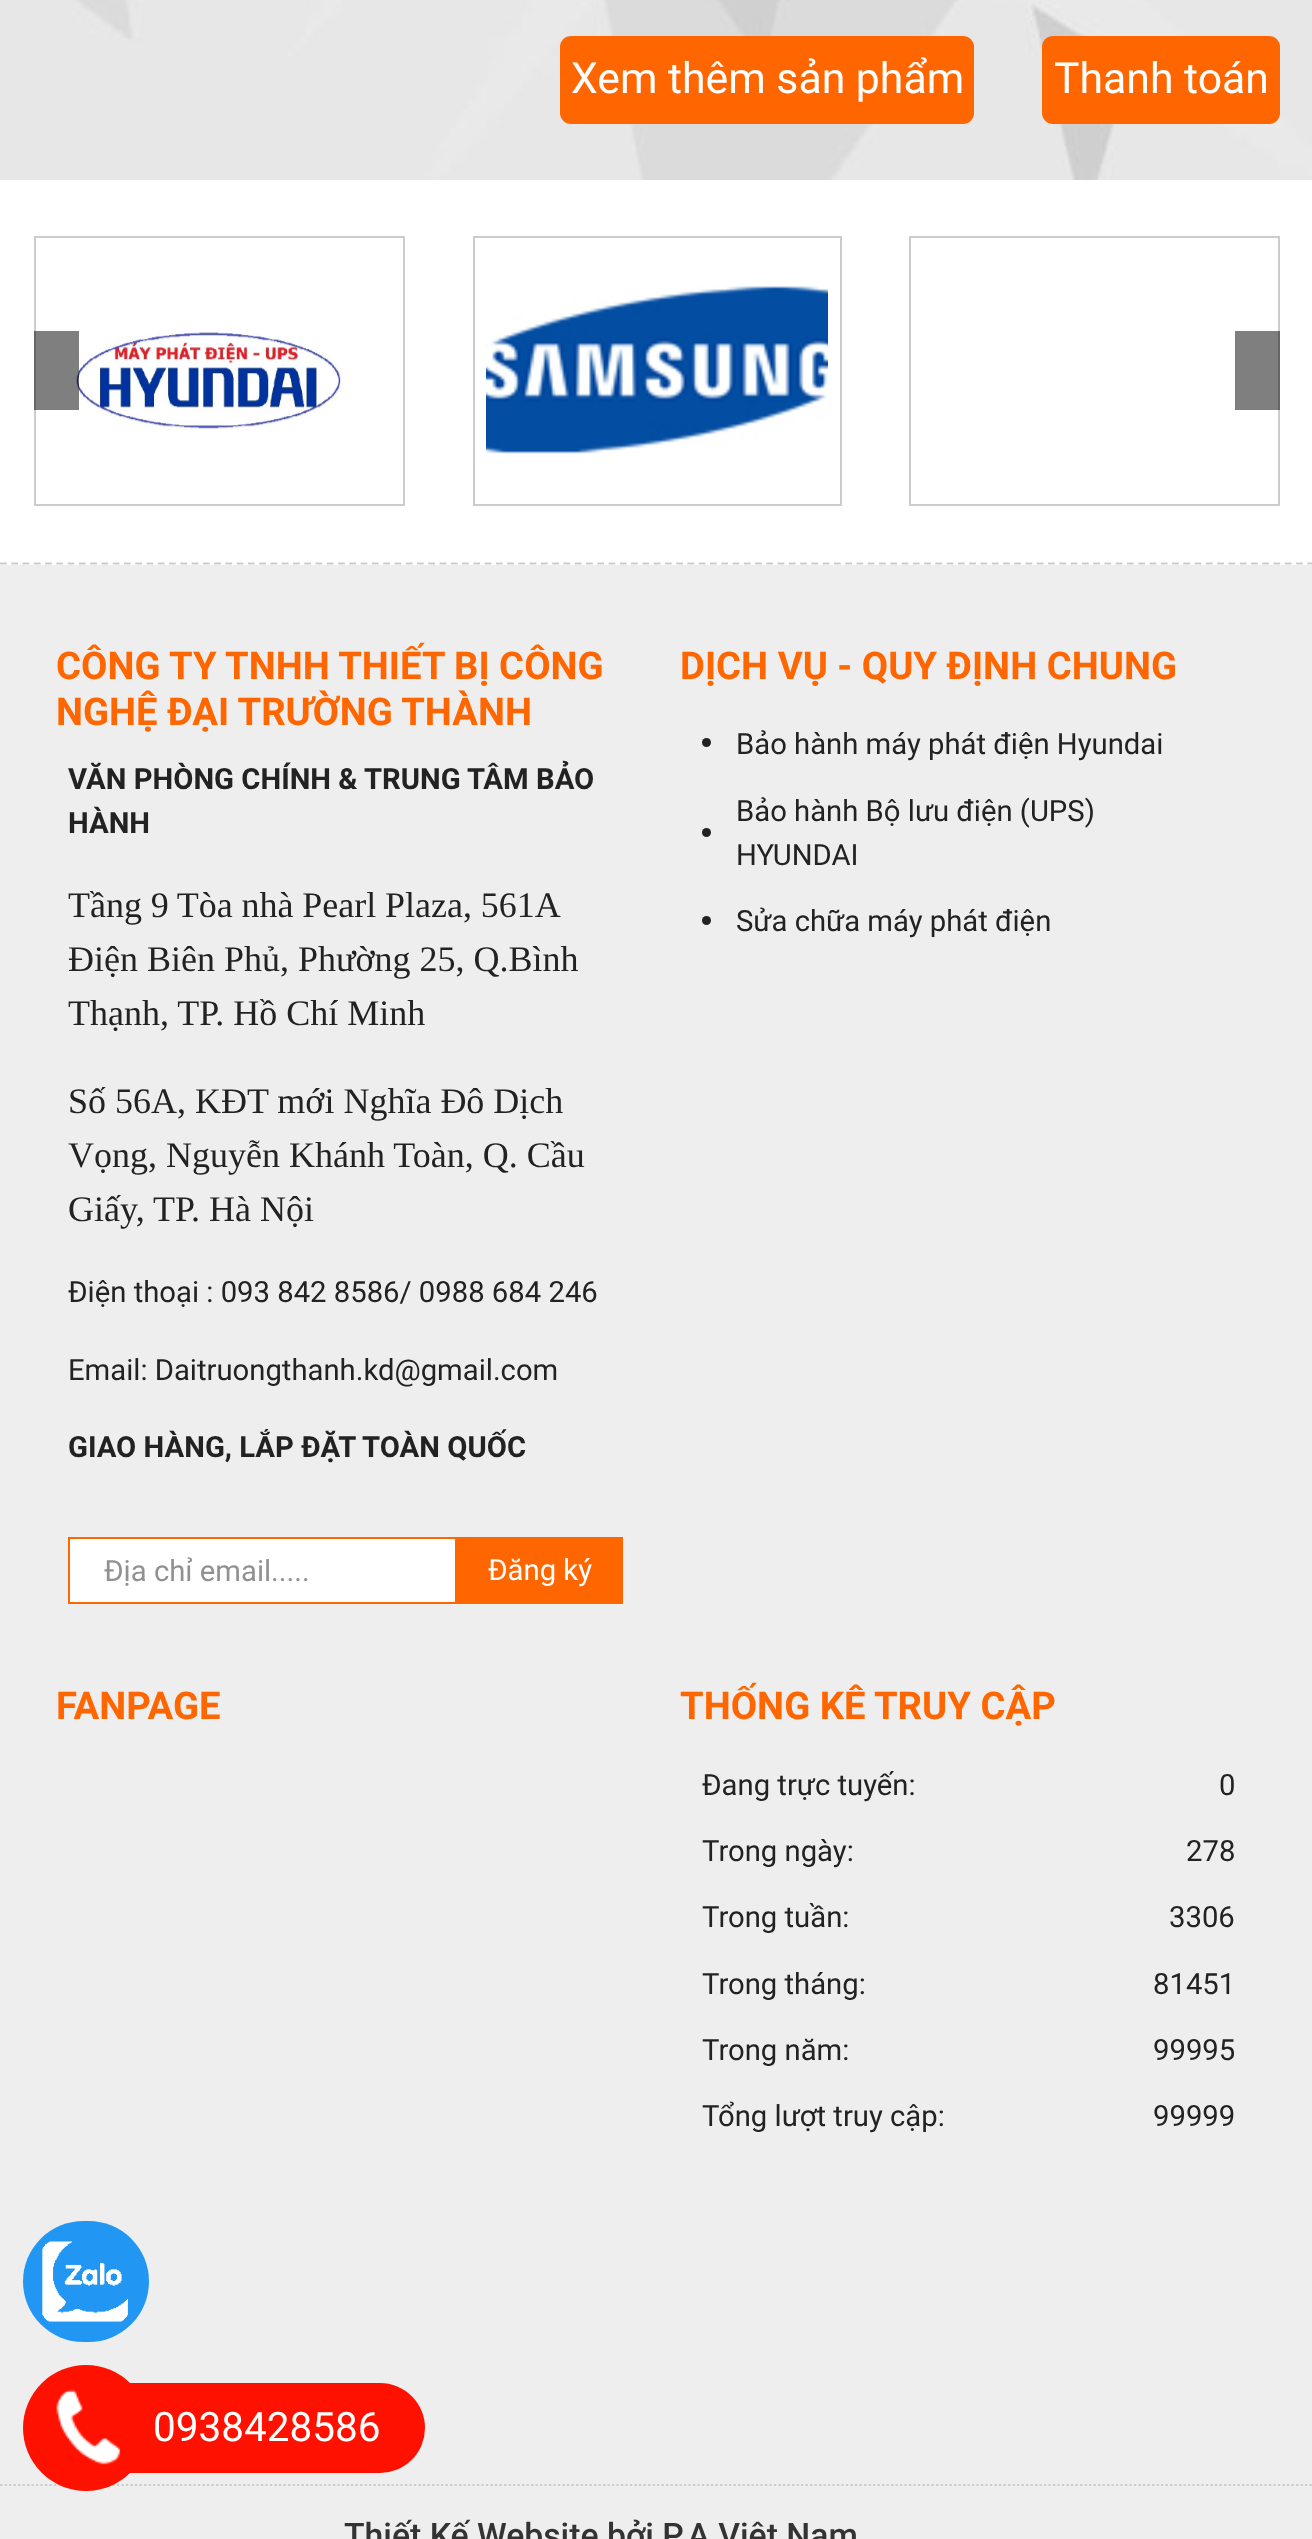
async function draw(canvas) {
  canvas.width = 1312;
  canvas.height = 2539;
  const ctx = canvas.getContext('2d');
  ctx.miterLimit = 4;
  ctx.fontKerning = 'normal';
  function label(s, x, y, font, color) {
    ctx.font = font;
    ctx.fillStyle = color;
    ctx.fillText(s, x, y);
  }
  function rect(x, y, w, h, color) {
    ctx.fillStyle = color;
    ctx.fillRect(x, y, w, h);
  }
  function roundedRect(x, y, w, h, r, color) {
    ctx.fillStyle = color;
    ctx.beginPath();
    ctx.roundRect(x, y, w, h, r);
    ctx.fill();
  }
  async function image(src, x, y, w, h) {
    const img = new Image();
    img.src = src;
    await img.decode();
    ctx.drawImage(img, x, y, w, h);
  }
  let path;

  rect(0, 0, 1312, 2539, '#fff');
  await image('assets/img1.png', 0, 0, 1312, 180);
  roundedRect(560, 36, 414, 88, 11, '#f60');
  label('Xem thêm sản phẩm', 571, 93, '42.75px Roboto', '#fff');
  roundedRect(1042, 36, 238, 88, 11, '#f60');
  label('Thanh toán', 1054, 93, '42.75px Roboto', '#fff');
  path = new Path2D('M0 563.5H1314');
  ctx.strokeStyle = '#ccc';
  ctx.lineWidth = 2.2;
  ctx.setLineDash([6.75, 4.52]);
  ctx.stroke(path);
  ctx.lineWidth = 2;
  ctx.setLineDash([]);
  ctx.strokeRect(35, 237, 369, 268);
  await image('assets/img2.png', 76, 331, 267, 99);
  ctx.strokeRect(474, 237, 367, 268);
  await image('assets/img3.png', 486, 286, 342, 168);
  ctx.strokeRect(910, 237, 369, 268);
  rect(34, 331, 45, 79, '#00000080');
  rect(1235, 331, 45, 79, '#00000080');
  rect(0, 565, 1312, 1974, '#eee');
  label('CÔNG TY TNHH THIẾT BỊ CÔNG', 56, 679, 'bold 38.25px Roboto', '#f60');
  label('NGHỆ ĐẠI TRƯỜNG THÀNH', 56, 725, 'bold 38.25px Roboto', '#f60');
  label('VĂN PHÒNG CHÍNH & TRUNG TÂM BẢO', 68, 789, 'bold 29.25px Roboto', '#222');
  label('HÀNH', 68, 833, 'bold 29.25px Roboto', '#222');
  ctx.wordSpacing = '-0.25px';
  label('Tầng 9 Tòa nhà Pearl Plaza, 561A', 68, 917, '36px Liberation Serif', '#222');
  ctx.wordSpacing = '0px';
  label('Điện Biên Phủ, Phường 25, Q.Bình', 68, 971, '36px Liberation Serif', '#222');
  label('Thạnh, TP. Hồ Chí Minh', 68, 1025, '36px Liberation Serif', '#222');
  label('Số 56A, KĐT mới Nghĩa Đô Dịch', 68, 1113, '36px Liberation Serif', '#222');
  label('Vọng, Nguyễn Khánh Toàn, Q. Cầu', 68, 1167, '36px Liberation Serif', '#222');
  label('Giấy, TP. Hà Nội', 68, 1221, '36px Liberation Serif', '#222');
  label('Điện thoại : 093 842 8586/ 0988 684 246', 68, 1302, '29.25px Roboto', '#222');
  label('Email: Daitruongthanh.kd@gmail.com', 68, 1380, '29.25px Roboto', '#222');
  label('GIAO HÀNG, LẮP ĐẶT TOÀN QUỐC', 68, 1457, 'bold 29.25px Roboto', '#222');
  ctx.fillStyle = '#fff';
  ctx.beginPath();
  ctx.rect(69, 1538, 387, 65);
  ctx.fill();
  ctx.strokeStyle = '#f60';
  ctx.stroke();
  label('Địa chỉ email.....', 104, 1581, '29.25px Roboto', '#919191');
  rect(457, 1537, 166, 67, '#f60');
  label('Đăng ký', 488, 1580, '29.25px Roboto', '#fff');
  label('DỊCH VỤ - QUY ĐỊNH CHUNG', 680, 679, 'bold 38.25px Roboto', '#f60');
  ctx.fillStyle = '#222';
  ctx.beginPath();
  ctx.arc(706.5, 742.5, 4.5, 0, 2 * Math.PI);
  ctx.fill();
  label('Bảo hành máy phát điện Hyundai', 736, 754, '29.25px Roboto', '#222');
  ctx.beginPath();
  ctx.arc(706.5, 832.5, 4.5, 0, 2 * Math.PI);
  ctx.fill();
  label('Bảo hành Bộ lưu điện (UPS)', 736, 821, '29.25px Roboto', '#222');
  label('HYUNDAI', 736, 865, '29.25px Roboto', '#222');
  ctx.beginPath();
  ctx.arc(706.5, 920.5, 4.5, 0, 2 * Math.PI);
  ctx.fill();
  label('Sửa chữa máy phát điện', 736, 931, '29.25px Roboto', '#222');
  label('FANPAGE', 56, 1719, 'bold 38.25px Roboto', '#f60');
  label('THỐNG KÊ TRUY CẬP', 680, 1719, 'bold 38.25px Roboto', '#f60');
  label('Đang trực tuyến:', 702, 1795, '29.25px Roboto', '#222');
  label('0', 1219, 1795, '29.25px Roboto', '#222');
  label('Trong ngày:', 702, 1861, '29.25px Roboto', '#222');
  label('278', 1186, 1861, '29.25px Roboto', '#222');
  label('Trong tuần:', 702, 1927, '29.25px Roboto', '#222');
  label('3306', 1169, 1927, '29.25px Roboto', '#222');
  label('Trong tháng:', 702, 1994, '29.25px Roboto', '#222');
  label('81451', 1153, 1994, '29.25px Roboto', '#222');
  label('Trong năm:', 702, 2060, '29.25px Roboto', '#222');
  label('99995', 1153, 2060, '29.25px Roboto', '#222');
  label('Tổng lượt truy cập:', 702, 2126, '29.25px Roboto', '#222');
  label('99999', 1153, 2126, '29.25px Roboto', '#222');
  roundedRect(23, 2221, 126, 121, 60.5, '#2196f3');
  await image('assets/img4.png', 42, 2241, 86, 81);
  path = new Path2D('M0 2485H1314');
  ctx.strokeStyle = '#ccc';
  ctx.lineWidth = 2.2;
  ctx.setLineDash([2.25, 2.25]);
  ctx.stroke(path);
  ctx.fillStyle = '#f10';
  ctx.beginPath();
  ctx.arc(86, 2428, 63, 0, 2 * Math.PI);
  ctx.fill();
  roundedRect(41, 2383, 384, 90, 45, '#f10');
  await image('assets/img5.png', 56, 2389, 65, 76);
  label('0938428586', 153, 2441, '40.5px Roboto', '#fff');
  label('Thiết Kế Website bởi P.A Việt Nam', 344, 2547, '500 33.75px Roboto', '#333');
}

draw(document.querySelector('canvas'));
